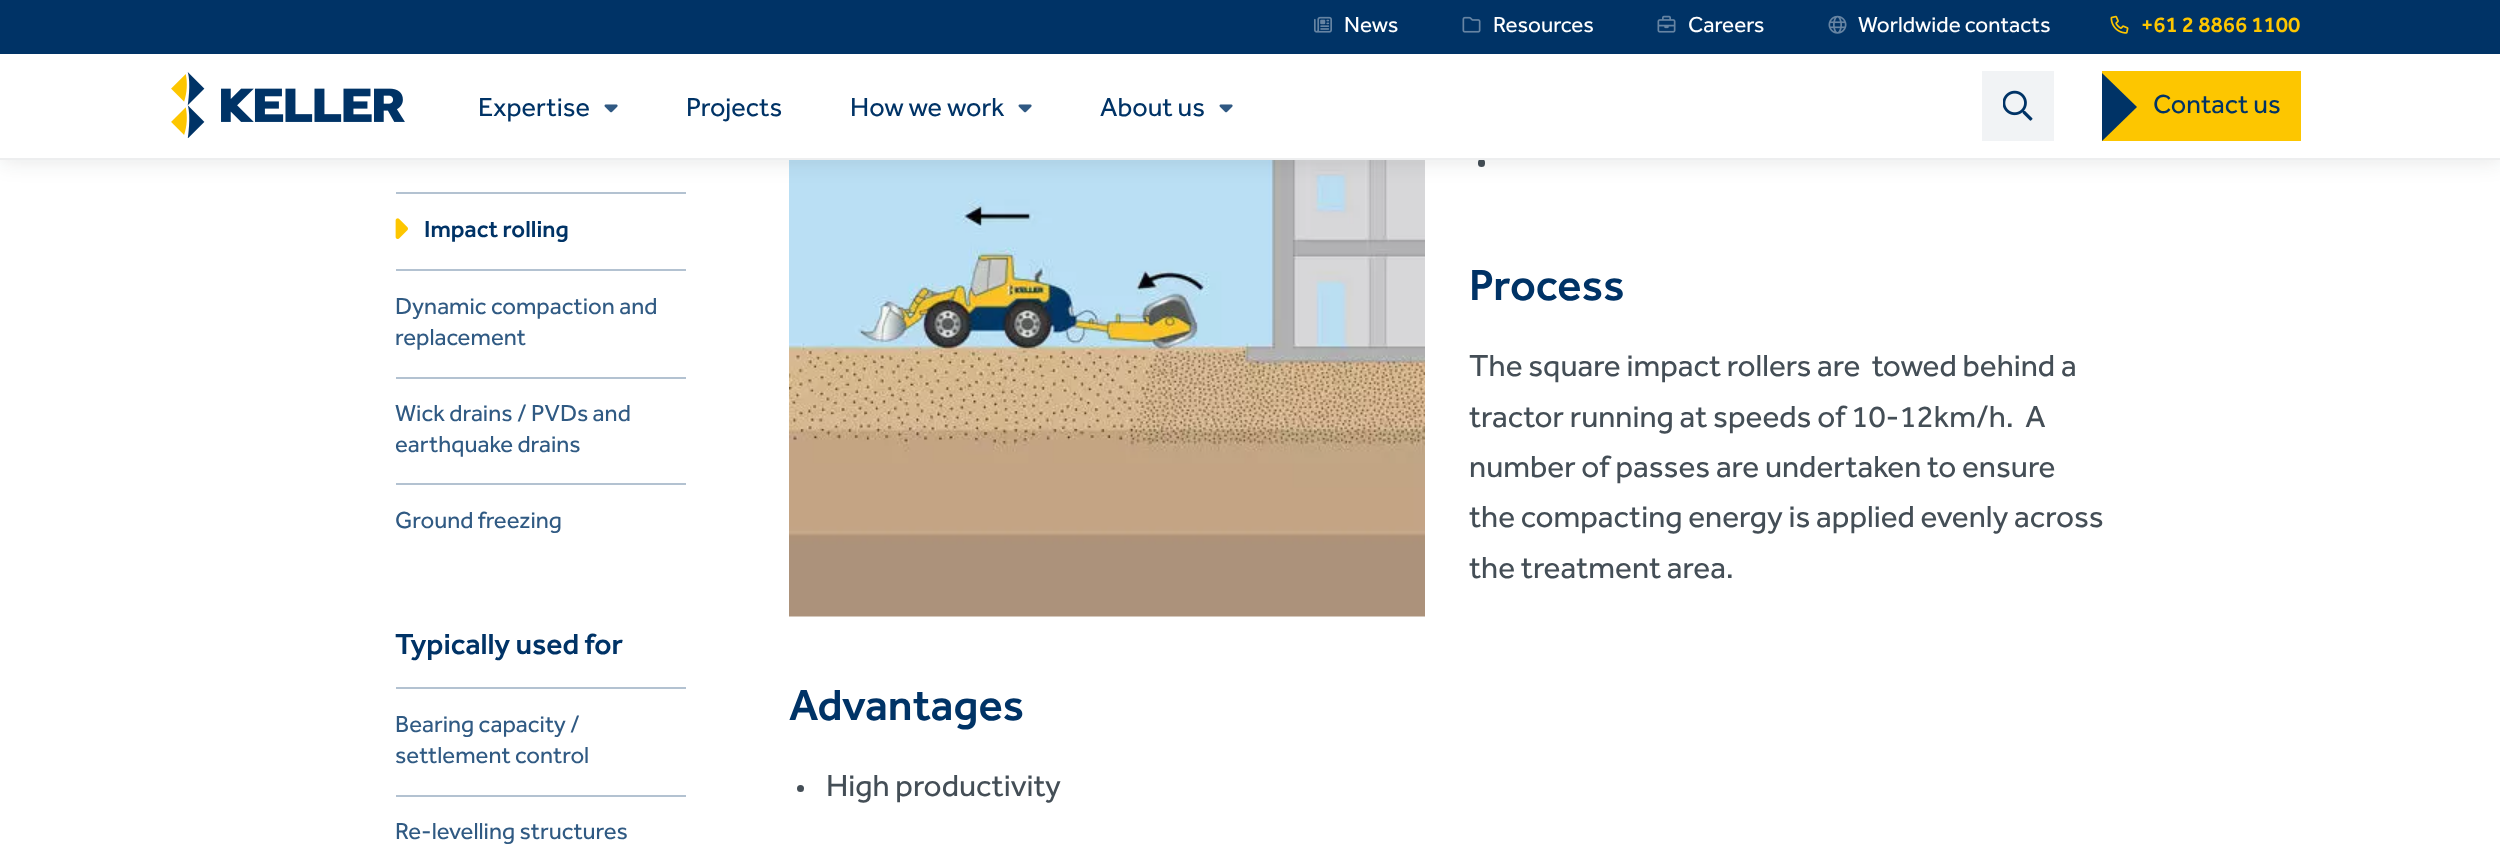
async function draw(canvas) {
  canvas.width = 2500;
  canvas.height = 847;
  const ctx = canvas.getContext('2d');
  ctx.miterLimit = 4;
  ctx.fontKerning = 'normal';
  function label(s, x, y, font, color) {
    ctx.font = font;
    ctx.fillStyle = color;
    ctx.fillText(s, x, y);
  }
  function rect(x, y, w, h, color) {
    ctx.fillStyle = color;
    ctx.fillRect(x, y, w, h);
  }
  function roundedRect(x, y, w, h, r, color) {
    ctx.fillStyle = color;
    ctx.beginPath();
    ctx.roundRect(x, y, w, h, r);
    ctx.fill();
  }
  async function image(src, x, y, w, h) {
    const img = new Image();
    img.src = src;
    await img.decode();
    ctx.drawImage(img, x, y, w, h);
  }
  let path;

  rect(0, 0, 2500, 847, '#fff');
  rect(396, 192, 290, 2, '#b3c2d1');
  await image('assets/img10.png', 789, 160, 636, 457);
  roundedRect(1478, 159, 7, 8, 3.5, '#444e56');
  ctx.fillStyle = '#171d221a';
  ctx.filter = 'blur(10.5px)';
  ctx.beginPath();
  ctx.rect(0, 3, 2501, 159);
  ctx.fill();
  ctx.filter = 'none';
  rect(0, 0, 2500, 54, '#036');
  await image('assets/img1.png', 1314, 16, 18, 17);
  label('News', 1344, 32, '22.5px "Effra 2"', '#fff');
  await image('assets/img2.png', 1462, 16, 19, 17);
  label('Resources', 1493, 32, '22.5px "Effra 2"', '#fff');
  await image('assets/img3.png', 1657, 15, 19, 18);
  label('Careers', 1688, 32, '22.5px "Effra 2"', '#fff');
  await image('assets/img4.png', 1828, 15, 19, 19);
  label('Worldwide contacts', 1858, 32, '22.5px "Effra 2"', '#fff');
  await image('assets/img5.png', 2110, 15, 19, 19);
  label('+61 2 8866 1100', 2141, 32, '22.5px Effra', '#fdc600');
  rect(0, 54, 2500, 104, '#fff');
  rect(0, 158, 2500, 2, '#edeeef');
  await image('assets/img6.png', 171, 72, 234, 66);
  label('Expertise', 478, 116, '27px "Effra 2"', '#036');
  await image('assets/img7.png', 604, 104, 14, 9);
  label('Projects', 686, 116, '27px "Effra 2"', '#036');
  label('How we work', 850, 116, '27px "Effra 2"', '#036');
  await image('assets/img7.png', 1018, 104, 14, 9);
  label('About us', 1100, 116, '27px "Effra 2"', '#036');
  await image('assets/img7.png', 1219, 104, 14, 9);
  rect(1982, 71, 72, 70, '#f1f3f5');
  await image('assets/img8.png', 2003, 90, 30, 31);
  rect(2102, 71, 199, 70, '#fdc600');
  ctx.save();
  ctx.beginPath();
  ctx.rect(2102, 71, 36, 70);
  ctx.clip();
  ctx.fillStyle = '#036';
  path = new Path2D('M2064 107L2100 71L2137 107L2100 143Z');
  ctx.fill(path, 'evenodd');
  ctx.restore();
  label('Contact us', 2153, 113, '27px "Effra 2"', '#036');
  rect(396, 269, 290, 2, '#b3c2d1');
  await image('assets/img9.png', 395, 218, 13, 21);
  label('Impact rolling', 424, 237, '24px Effra', '#036');
  rect(396, 377, 290, 2, '#b3c2d1');
  label('Dynamic compaction and', 395, 314, '24px "Effra 2"', '#305a83');
  label('replacement', 395, 345, '24px "Effra 2"', '#305a83');
  rect(396, 483, 290, 2, '#b3c2d1');
  label('Wick drains / PVDs and', 395, 421, '24px "Effra 2"', '#305a83');
  label('earthquake drains', 395, 452, '24px "Effra 2"', '#305a83');
  label('Ground freezing', 395, 528, '24px "Effra 2"', '#305a83');
  rect(396, 687, 290, 2, '#b3c2d1');
  label('Typically used for', 395, 654, '30px Effra', '#036');
  rect(396, 795, 290, 2, '#b3c2d1');
  label('Bearing capacity /', 395, 732, '24px "Effra 2"', '#305a83');
  label('settlement control', 395, 763, '24px "Effra 2"', '#305a83');
  label('Re-levelling structures', 395, 839, '24px "Effra 2"', '#305a83');
  label('Process', 1469, 300, '45px Effra', '#036');
  label('The square impact rollers are  towed behind a', 1469, 376, '31.5px "Effra 2"', '#444e56');
  label('tractor running at speeds of 10-12km/h.  A', 1469, 427, '31.5px "Effra 2"', '#444e56');
  label('number of passes are undertaken to ensure', 1469, 477, '31.5px "Effra 2"', '#444e56');
  label('the compacting energy is applied evenly across', 1469, 527, '31.5px "Effra 2"', '#444e56');
  label('the treatment area.', 1469, 578, '31.5px "Effra 2"', '#444e56');
  label('Advantages', 789, 720, '45px Effra', '#036');
  ctx.fillStyle = '#444e56';
  ctx.beginPath();
  ctx.arc(800.5, 788.5, 3.5, 0, 2 * Math.PI);
  ctx.fill();
  label('High productivity', 826, 796, '31.5px "Effra 2"', '#444e56');
}

draw(document.querySelector('canvas'));
